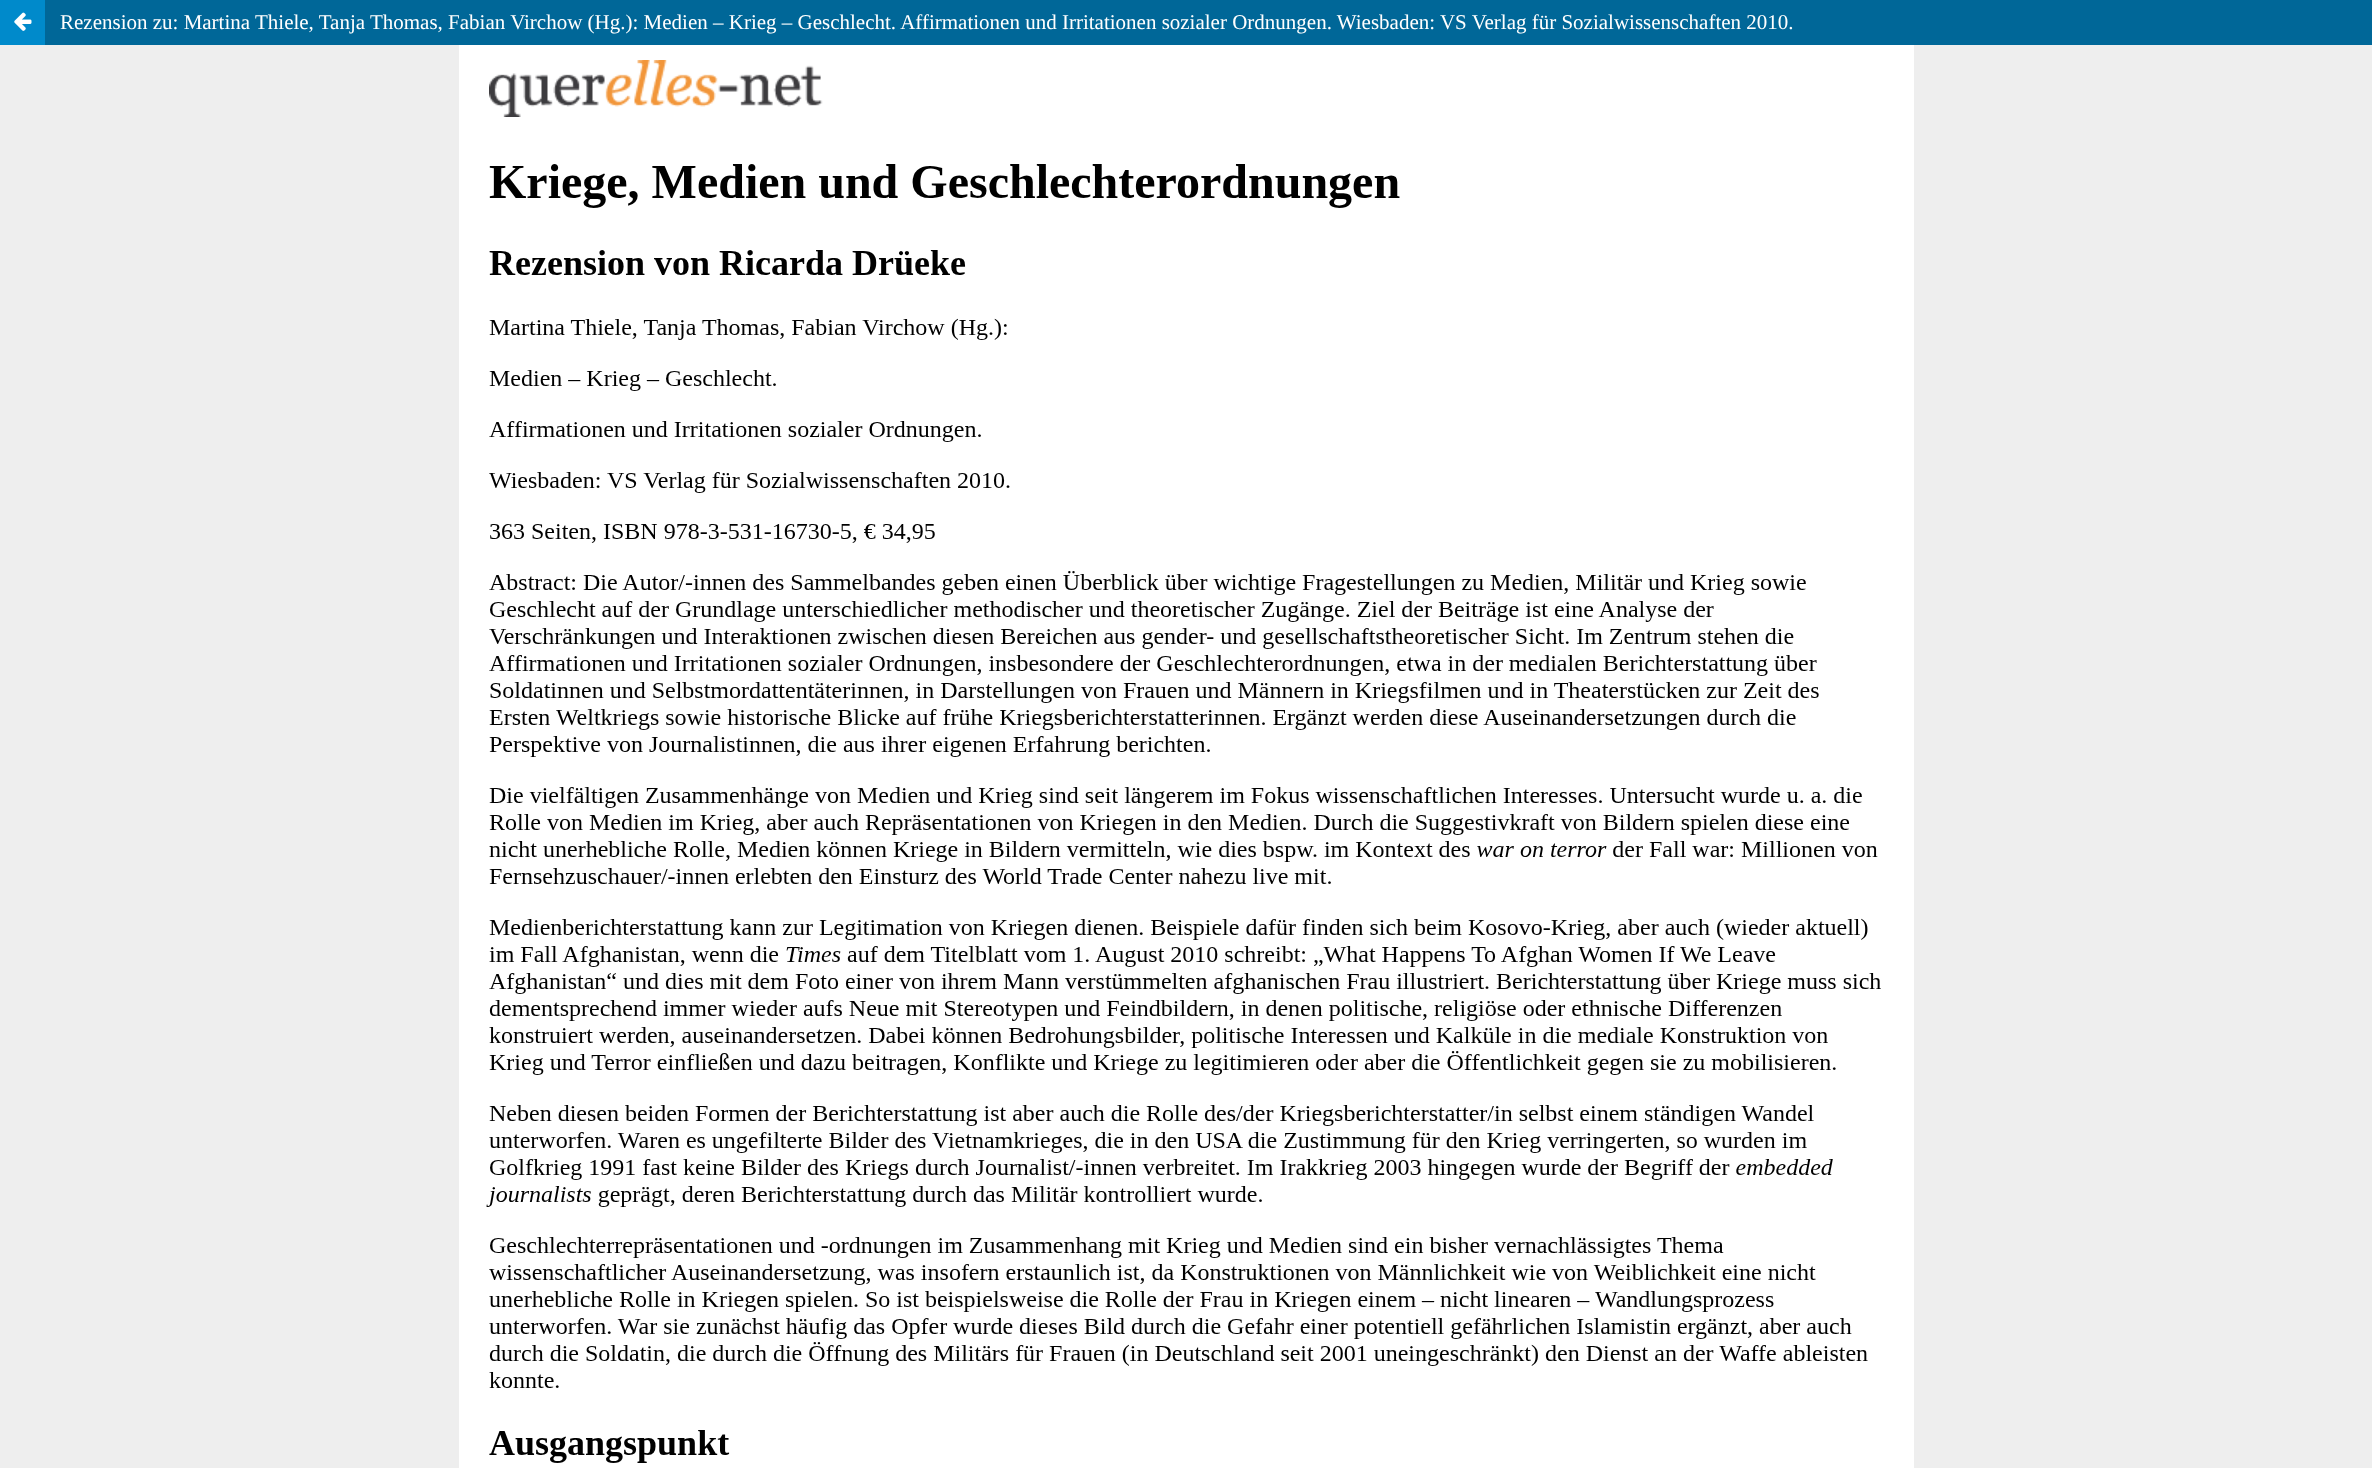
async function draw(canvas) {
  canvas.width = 2372;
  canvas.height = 1468;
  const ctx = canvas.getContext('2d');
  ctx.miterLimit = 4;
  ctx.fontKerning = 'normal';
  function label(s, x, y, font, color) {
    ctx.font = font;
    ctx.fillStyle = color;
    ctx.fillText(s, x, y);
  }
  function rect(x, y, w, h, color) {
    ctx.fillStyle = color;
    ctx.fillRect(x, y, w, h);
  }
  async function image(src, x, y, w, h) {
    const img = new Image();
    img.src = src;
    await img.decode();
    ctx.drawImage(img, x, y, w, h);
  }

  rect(0, 0, 2372, 1468, '#fff');
  rect(45, 0, 2327, 45, '#006798');
  rect(0, 0, 45, 45, '#008acb');
  await image('assets/img1.png', 14, 12, 18, 19);
  label('Rezension zu: Martina Thiele, Tanja Thomas, Fabian Virchow (Hg.): Medien – Krieg – Geschlecht. Affirmationen und Irritationen sozialer Ordnungen. Wiesbaden: VS Verlag für Sozialwissenschaften 2010.', 60, 29, '21px Liberation Serif', '#fff');
  await image('assets/img2.png', 0, 45, 2372, 1423);
}

draw(document.querySelector('canvas'));
